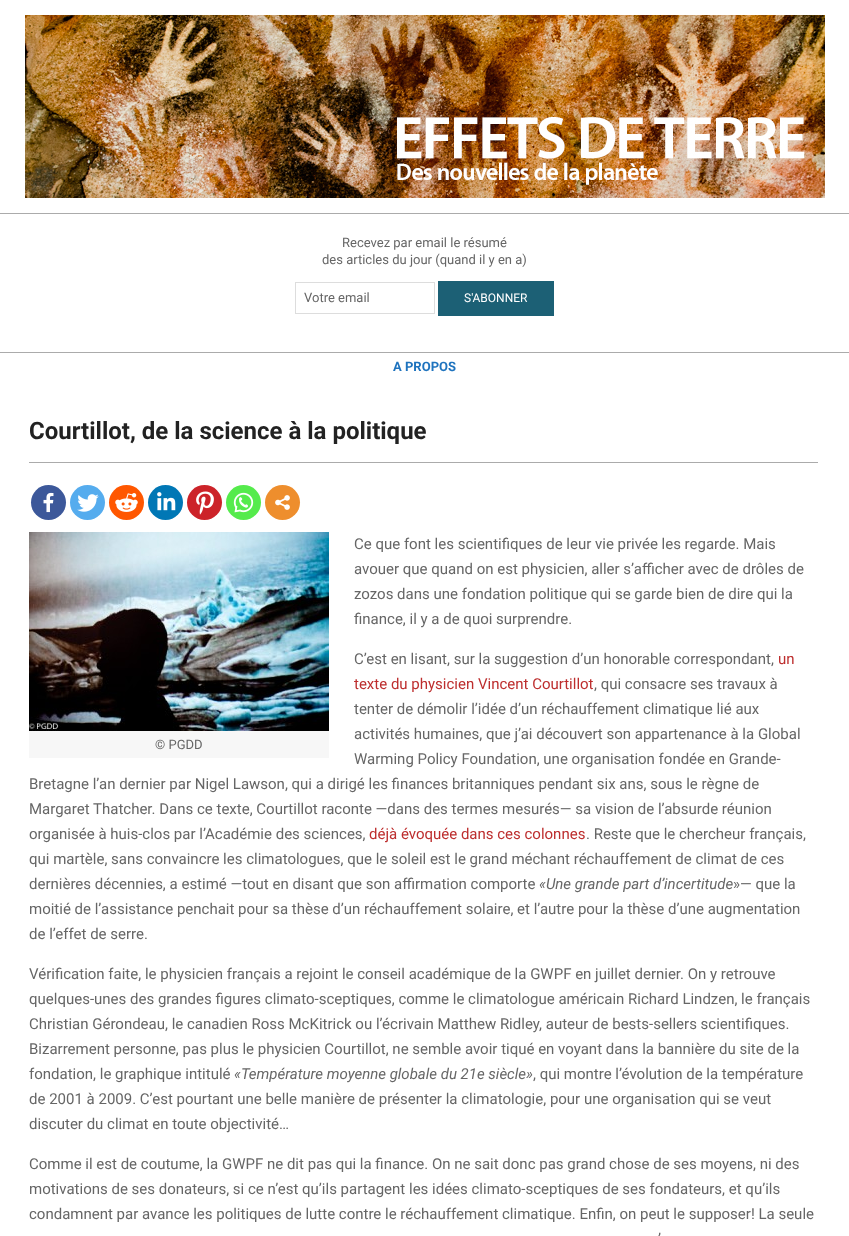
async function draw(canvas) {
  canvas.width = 849;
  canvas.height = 1236;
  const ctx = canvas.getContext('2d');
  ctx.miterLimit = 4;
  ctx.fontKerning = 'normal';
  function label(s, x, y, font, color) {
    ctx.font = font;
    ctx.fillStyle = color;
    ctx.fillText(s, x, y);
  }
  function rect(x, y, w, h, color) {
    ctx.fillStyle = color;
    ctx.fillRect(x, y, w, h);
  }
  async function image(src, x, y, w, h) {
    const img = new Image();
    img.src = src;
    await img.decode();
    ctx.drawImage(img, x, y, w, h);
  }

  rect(0, 0, 849, 1236, '#fff');
  await image('assets/img1.png', 25, 15, 800, 183);
  rect(0, 213, 849, 1, '#ababab');
  label('Recevez par email le résumé', 342, 247, '13px Roboto', '#666');
  label('des articles du jour (quand il y en a)', 322, 264, '13px Roboto', '#666');
  ctx.strokeStyle = '#ddd';
  ctx.strokeRect(295.5, 282.5, 139, 31);
  label('Votre email', 304, 302, '13px Roboto', '#666');
  rect(438, 281, 116, 35, '#1c6075');
  label('S\'ABONNER', 464, 302, '12px Roboto', '#fff');
  rect(0, 352, 849, 1, '#ababab');
  label('A PROPOS', 393, 371, 'bold 13px Roboto', '#1e73be');
  rect(29, 462, 789, 1, '#ababab');
  label('Courtillot, de la science à la politique', 29, 439, 'bold 24px Roboto', '#222');
  ctx.fillStyle = '#3c589a';
  ctx.beginPath();
  ctx.arc(48.5, 502.5, 17.5, 0, 2 * Math.PI);
  ctx.fill();
  await image('assets/img2.png', 43, 492, 11, 21);
  ctx.fillStyle = '#55acee';
  ctx.beginPath();
  ctx.arc(87.5, 502.5, 17.5, 0, 2 * Math.PI);
  ctx.fill();
  await image('assets/img3.png', 77, 494, 22, 18);
  ctx.fillStyle = '#ff5700';
  ctx.beginPath();
  ctx.arc(126.5, 502.5, 17.5, 0, 2 * Math.PI);
  ctx.fill();
  await image('assets/img4.png', 115, 493, 23, 19);
  ctx.fillStyle = '#0077b5';
  ctx.beginPath();
  ctx.arc(165.5, 502.5, 17.5, 0, 2 * Math.PI);
  ctx.fill();
  await image('assets/img5.png', 157, 492, 19, 19);
  ctx.fillStyle = '#cc2329';
  ctx.beginPath();
  ctx.arc(204.5, 502.5, 17.5, 0, 2 * Math.PI);
  ctx.fill();
  await image('assets/img6.png', 196, 491, 18, 24);
  ctx.fillStyle = '#55eb4c';
  ctx.beginPath();
  ctx.arc(243.5, 502.5, 17.5, 0, 2 * Math.PI);
  ctx.fill();
  await image('assets/img7.png', 233, 492, 21, 21);
  ctx.fillStyle = '#ee8e2d';
  ctx.beginPath();
  ctx.arc(282.5, 502.5, 17.5, 0, 2 * Math.PI);
  ctx.fill();
  await image('assets/img8.png', 275, 495, 15, 15);
  label('Ce que font les scientifiques de leur vie privée les regarde. Mais', 354, 549, '15px Roboto', '#666');
  label('avouer que quand on est physicien, aller s’afficher avec de drôles de', 354, 574, '15px Roboto', '#666');
  label('zozos dans une fondation politique qui se garde bien de dire qui la', 354, 599, '15px Roboto', '#666');
  label('finance, il y a de quoi surprendre.', 354, 624, '15px Roboto', '#666');
  label('C’est en lisant, sur la suggestion d’un honorable correspondant,', 354, 664, '15px Roboto', '#666');
  label('un', 778, 664, '15px Roboto', '#bd2e2e');
  label('texte du physicien Vincent Courtillot', 354, 689, '15px Roboto', '#bd2e2e');
  label(', qui consacre ses travaux à', 594, 689, '15px Roboto', '#666');
  label('tenter de démolir l’idée d’un réchauffement climatique lié aux', 354, 714, '15px Roboto', '#666');
  label('activités humaines, que j’ai découvert son appartenance à la Global', 354, 739, '15px Roboto', '#666');
  label('Warming Policy Foundation, une organisation fondée en Grande-', 354, 764, '15px Roboto', '#666');
  label('Bretagne l’an dernier par Nigel Lawson, qui a dirigé les finances britanniques pendant six ans, sous le règne de', 29, 789, '15px Roboto', '#666');
  label('Margaret Thatcher. Dans ce texte, Courtillot raconte —dans des termes mesurés— sa vision de l’absurde réunion', 29, 814, '15px Roboto', '#666');
  label('organisée à huis-clos par l’Académie des sciences,', 29, 839, '15px Roboto', '#666');
  label('déjà évoquée dans ces colonnes', 369, 839, '15px Roboto', '#bd2e2e');
  label('. Reste que le chercheur français,', 586, 839, '15px Roboto', '#666');
  label('qui martèle, sans convaincre les climatologues, que le soleil est le grand méchant réchauffement de climat de ces', 29, 864, '15px Roboto', '#666');
  label('dernières décennies, a estimé —tout en disant que son affirmation comporte', 29, 889, '15px Roboto', '#666');
  label('«Une grande part d’incertitude', 539, 889, 'italic 15px Roboto', '#666');
  label('»— que la', 733, 889, '15px Roboto', '#666');
  label('moitié de l’assistance penchait pour sa thèse d’un réchauffement solaire, et l’autre pour la thèse d’une augmentation', 29, 914, '15px Roboto', '#666');
  label('de l’effet de serre.', 29, 939, '15px Roboto', '#666');
  await image('assets/img9.png', 29, 532, 300, 199);
  rect(29, 731, 300, 27, '#f7f7f7');
  label('© PGDD', 155, 749, '13px Roboto', '#666');
  label('Vérification faite, le physicien français a rejoint le conseil académique de la GWPF en juillet dernier. On y retrouve', 29, 979, '15px Roboto', '#666');
  label('quelques-unes des grandes figures climato-sceptiques, comme le climatologue américain Richard Lindzen, le français', 29, 1004, '15px Roboto', '#666');
  label('Christian Gérondeau, le canadien Ross McKitrick ou l’écrivain Matthew Ridley, auteur de bests-sellers scientifiques.', 29, 1029, '15px Roboto', '#666');
  label('Bizarrement personne, pas plus le physicien Courtillot, ne semble avoir tiqué en voyant dans la bannière du site de la', 29, 1054, '15px Roboto', '#666');
  label('fondation, le graphique intitulé', 29, 1079, '15px Roboto', '#666');
  label('«Température moyenne globale du 21e siècle»', 234, 1079, 'italic 15px Roboto', '#666');
  label(', qui montre l’évolution de la température', 533, 1079, '15px Roboto', '#666');
  label('de 2001 à 2009. C’est pourtant une belle manière de présenter la climatologie, pour une organisation qui se veut', 29, 1104, '15px Roboto', '#666');
  label('discuter du climat en toute objectivité…', 29, 1129, '15px Roboto', '#666');
  label('Comme il est de coutume, la GWPF ne dit pas qui la finance. On ne sait donc pas grand chose de ses moyens, ni des', 29, 1169, '15px Roboto', '#666');
  label('motivations de ses donateurs, si ce n’est qu’ils partagent les idées climato-sceptiques de ses fondateurs, et qu’ils', 29, 1194, '15px Roboto', '#666');
  label('condamnent par avance les politiques de lutte contre le réchauffement climatique. Enfin, on peut le supposer! La seule', 29, 1219, '15px Roboto', '#666');
  label('’', 658, 1244, '15px Roboto', '#666');
}

draw(document.querySelector('canvas'));
